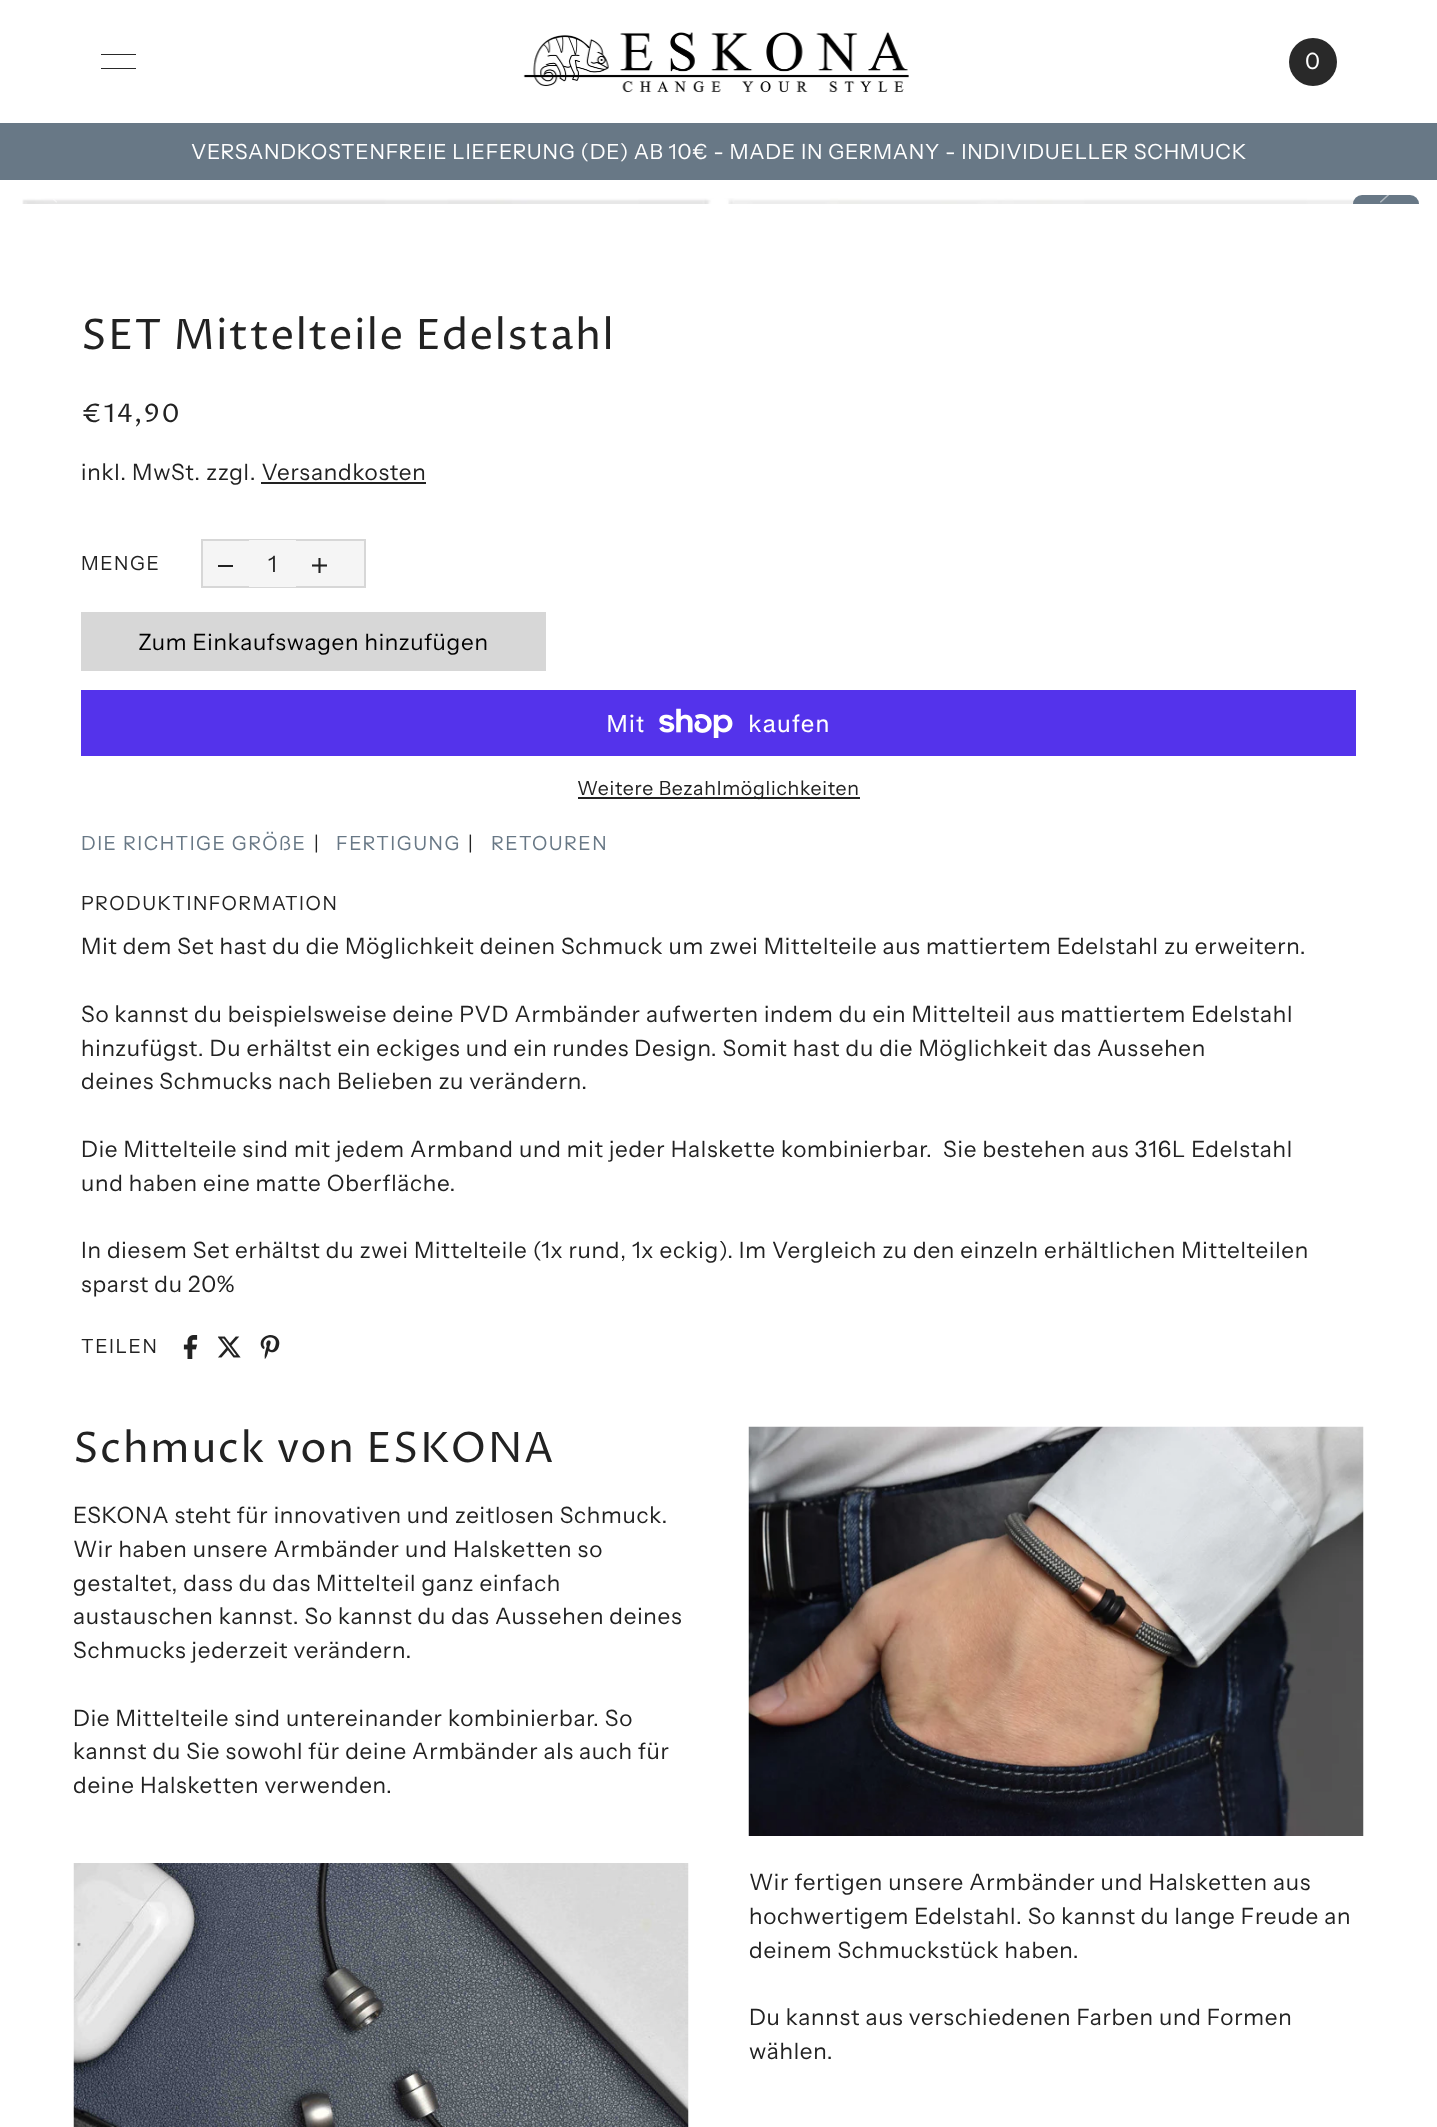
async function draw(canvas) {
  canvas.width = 1437;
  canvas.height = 2127;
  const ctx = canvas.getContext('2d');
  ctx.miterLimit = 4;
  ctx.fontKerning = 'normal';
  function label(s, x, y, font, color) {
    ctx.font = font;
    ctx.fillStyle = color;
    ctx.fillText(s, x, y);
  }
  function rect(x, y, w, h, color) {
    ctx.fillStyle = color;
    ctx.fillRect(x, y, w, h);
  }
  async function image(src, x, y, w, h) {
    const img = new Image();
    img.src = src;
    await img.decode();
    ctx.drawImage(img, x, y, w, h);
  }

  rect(0, 0, 1437, 2127, '#fff');
  rect(101, 54, 35, 1, '#292929');
  rect(101, 68, 35, 1, '#292929');
  await image('assets/img1.png', 523, 32, 386, 61);
  ctx.beginPath();
  ctx.arc(1313, 62, 24, 0, 2 * Math.PI);
  ctx.fill();
  ctx.letterSpacing = '0.75px';
  label('0', 1305, 69, '22.5px Instrument Sans', '#fff');
  rect(0, 123, 1437, 57, '#687886');
  label('VERSANDKOSTENFREIE LIEFERUNG (DE) AB 10€ - MADE IN GERMANY - INDIVIDUELLER SCHMUCK', 191, 159, '21px Instrument Sans', '#fff');
  await image('assets/img2.png', 22, 198, 1393, 6);
  ctx.fillStyle = '#687886';
  ctx.beginPath();
  ctx.roundRect(1353, 195, 66, 9, [33, 33, 0, 0]);
  ctx.fill();
  await image('assets/img3.png', 53, 199, 4, 4);
  await image('assets/img4.png', 1380, 195, 9, 8);
  ctx.letterSpacing = '1.5px';
  label('SET Mittelteile Edelstahl', 81, 349, '42px Proza Libre', '#222');
  label('€14,90', 81, 422, '25.5px Proza Libre', '#222');
  ctx.letterSpacing = '0.75px';
  label('inkl. MwSt. zzgl. Versandkosten', 81, 480, '22.5px Instrument Sans', '#222');
  rect(261, 482, 165, 2, '#222');
  ctx.letterSpacing = '1.5px';
  label('MENGE', 81, 570, '19.5px Instrument Sans', '#222');
  ctx.fillStyle = '#f5f5f5';
  ctx.beginPath();
  ctx.rect(202, 540, 163, 47);
  ctx.fill();
  ctx.strokeStyle = '#d7d7d7';
  ctx.lineWidth = 2;
  ctx.stroke();
  rect(218, 565, 15, 2, '#222');
  rect(249, 540, 47, 47, '#f5f5f5');
  ctx.letterSpacing = '0.75px';
  label('1', 268, 572, '22.5px Instrument Sans', '#222');
  await image('assets/img5.png', 312, 558, 15, 15);
  rect(81, 612, 465, 59, '#d7d7d7');
  label('Zum Einkaufswagen hinzufügen', 138, 650, '22.5px Instrument Sans', '#000');
  rect(81, 690, 1275, 66, '#5433eb');
  label('Mit', 606, 732, '24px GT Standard', '#fff');
  await image('assets/img6.png', 659, 708, 74, 30);
  label('kaufen', 748, 732, '24px GT Standard', '#fff');
  rect(578, 797, 282, 2, '#222');
  label('Weitere Bezahlmöglichkeiten', 577, 795, '19.5px Instrument Sans', '#222');
  ctx.letterSpacing = '1.5px';
  label('DIE RICHTIGE GRÖßE', 81, 850, '19.5px Instrument Sans', '#687886');
  label('|', 314, 850, '19.5px Instrument Sans', '#222');
  label('FERTIGUNG', 336, 850, '19.5px Instrument Sans', '#687886');
  label('|', 468, 850, '19.5px Instrument Sans', '#222');
  label('RETOUREN', 491, 850, '19.5px Instrument Sans', '#687886');
  label('PRODUKTINFORMATION', 81, 910, '19.5px Instrument Sans', '#222');
  ctx.letterSpacing = '0.75px';
  label('Mit dem Set hast du die Möglichkeit deinen Schmuck um zwei Mittelteile aus mattiertem Edelstahl zu erweitern.', 81, 954, '22.5px Instrument Sans', '#222');
  label('So kannst du beispielsweise deine PVD Armbänder aufwerten indem du ein Mittelteil aus mattiertem Edelstahl', 81, 1022, '22.5px Instrument Sans', '#222');
  label('hinzufügst. Du erhältst ein eckiges und ein rundes Design. Somit hast du die Möglichkeit das Aussehen', 81, 1056, '22.5px Instrument Sans', '#222');
  label('deines Schmucks nach Belieben zu verändern.', 81, 1089, '22.5px Instrument Sans', '#222');
  label('Die Mittelteile sind mit jedem Armband und mit jeder Halskette kombinierbar.  Sie bestehen aus 316L Edelstahl', 81, 1157, '22.5px Instrument Sans', '#222');
  label('und haben eine matte Oberfläche.', 81, 1191, '22.5px Instrument Sans', '#222');
  label('In diesem Set erhältst du zwei Mittelteile (1x rund, 1x eckig). Im Vergleich zu den einzeln erhältlichen Mittelteilen', 81, 1258, '22.5px Instrument Sans', '#222');
  label('sparst du 20%', 81, 1292, '22.5px Instrument Sans', '#222');
  ctx.letterSpacing = '1.5px';
  label('TEILEN', 81, 1353, '19.5px Instrument Sans', '#222');
  await image('assets/img7.png', 183, 1335, 15, 24);
  await image('assets/img8.png', 218, 1336, 23, 22);
  await image('assets/img9.png', 260, 1335, 20, 24);
  label('Schmuck von ESKONA', 73, 1462, '42px Proza Libre', '#222');
  ctx.letterSpacing = '0.75px';
  label('ESKONA steht für innovativen und zeitlosen Schmuck.', 73, 1523, '22.5px Instrument Sans', '#222');
  label('Wir haben unsere Armbänder und Halsketten so', 73, 1557, '22.5px Instrument Sans', '#222');
  label('gestaltet, dass du das Mittelteil ganz einfach', 73, 1591, '22.5px Instrument Sans', '#222');
  label('austauschen kannst. So kannst du das Aussehen deines', 73, 1624, '22.5px Instrument Sans', '#222');
  label('Schmucks jederzeit verändern.', 73, 1658, '22.5px Instrument Sans', '#222');
  label('Die Mittelteile sind untereinander kombinierbar. So', 73, 1726, '22.5px Instrument Sans', '#222');
  label('kannst du Sie sowohl für deine Armbänder als auch für', 73, 1759, '22.5px Instrument Sans', '#222');
  label('deine Halsketten verwenden.', 73, 1793, '22.5px Instrument Sans', '#222');
  await image('assets/img10.png', 73, 1863, 616, 264);
  await image('assets/img11.png', 748, 1426, 616, 410);
  label('Wir fertigen unsere Armbänder und Halsketten aus', 749, 1890, '22.5px Instrument Sans', '#222');
  label('hochwertigem Edelstahl. So kannst du lange Freude an', 749, 1924, '22.5px Instrument Sans', '#222');
  label('deinem Schmuckstück haben.', 749, 1958, '22.5px Instrument Sans', '#222');
  label('Du kannst aus verschiedenen Farben und Formen', 749, 2025, '22.5px Instrument Sans', '#222');
  label('wählen.', 749, 2059, '22.5px Instrument Sans', '#222');
}

draw(document.querySelector('canvas'));
